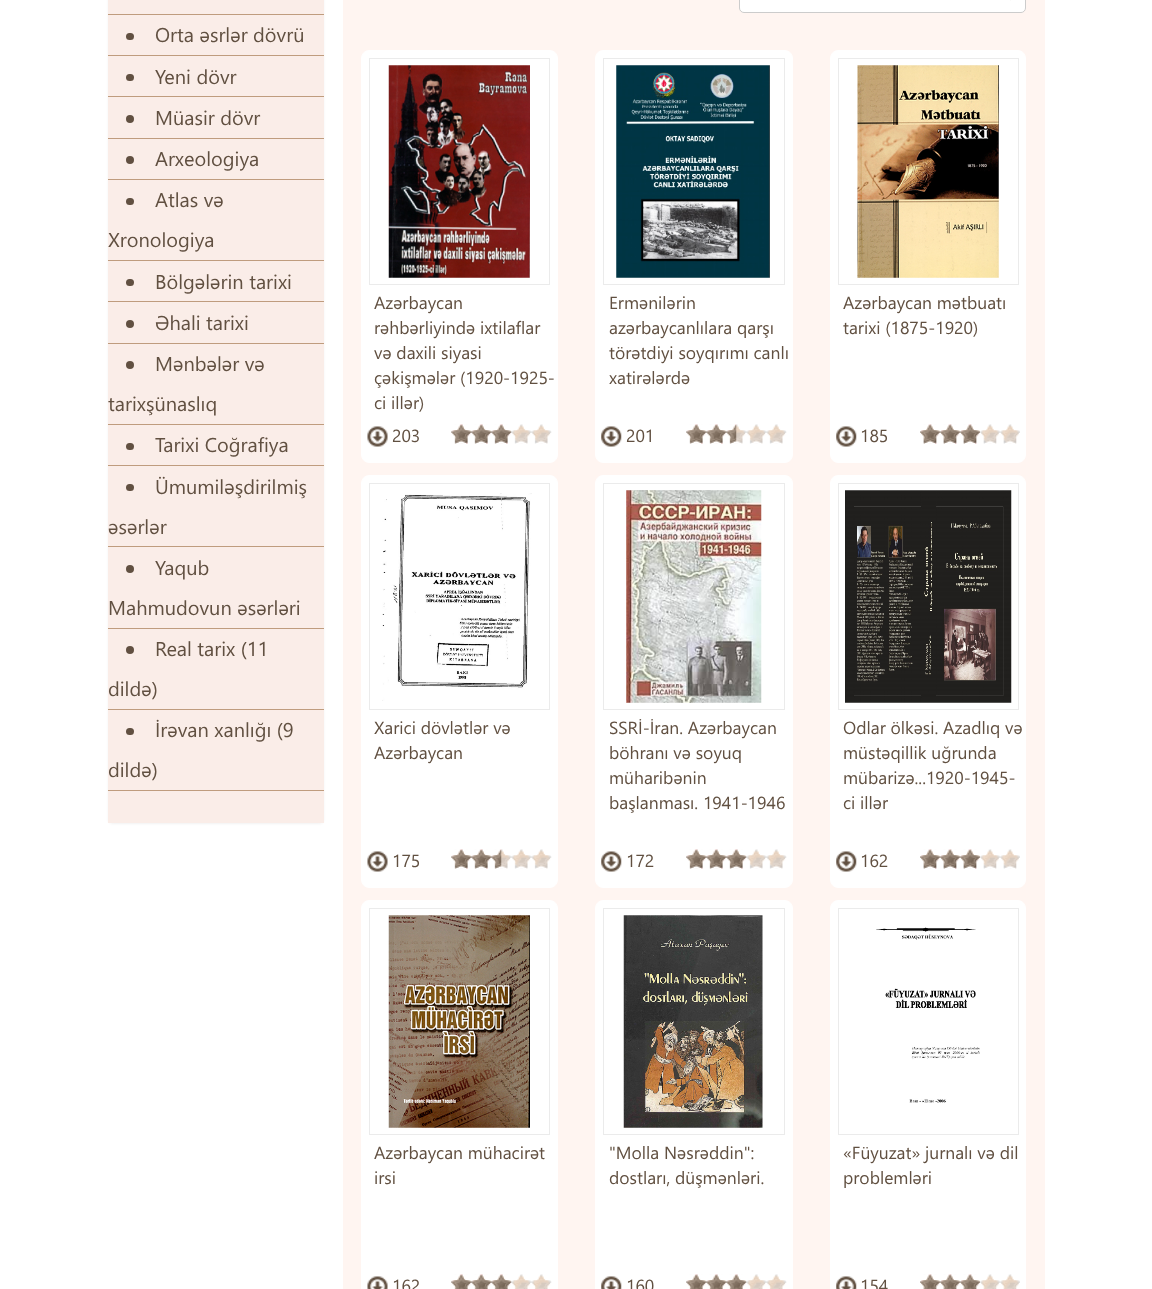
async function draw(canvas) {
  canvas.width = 1152;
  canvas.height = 1289;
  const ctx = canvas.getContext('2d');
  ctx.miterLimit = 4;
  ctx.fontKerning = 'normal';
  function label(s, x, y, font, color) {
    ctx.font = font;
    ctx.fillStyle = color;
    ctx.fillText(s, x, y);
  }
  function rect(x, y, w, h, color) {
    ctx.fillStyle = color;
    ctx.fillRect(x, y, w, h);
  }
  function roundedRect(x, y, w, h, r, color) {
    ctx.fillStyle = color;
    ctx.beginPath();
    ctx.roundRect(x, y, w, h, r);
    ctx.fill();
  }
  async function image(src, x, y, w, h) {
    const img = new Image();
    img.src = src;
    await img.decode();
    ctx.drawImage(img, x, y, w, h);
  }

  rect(0, 0, 1152, 1289, '#fff');
  ctx.fillStyle = '#0000000d';
  ctx.filter = 'blur(1px)';
  ctx.beginPath();
  ctx.roundRect(108, -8, 216, 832, 5);
  ctx.fill();
  ctx.filter = 'none';
  rect(108, 0, 216, 823, '#faede8');
  rect(108, 14, 216, 1, '#bf9c7e');
  rect(108, 55, 216, 1, '#bf9c7e');
  roundedRect(126, 33, 8, 7, 3.5, '#615041');
  label('Orta əsrlər dövrü', 155, 42, '20px Segoe UI', '#615041');
  rect(108, 96, 216, 1, '#bf9c7e');
  roundedRect(126, 74, 8, 7, 3.5, '#615041');
  label('Yeni dövr', 155, 84, '20px Segoe UI', '#615041');
  rect(108, 138, 216, 1, '#bf9c7e');
  ctx.fillStyle = '#615041';
  ctx.beginPath();
  ctx.arc(130, 119, 4, 0, 2 * Math.PI);
  ctx.fill();
  label('Müasir dövr', 155, 125, '20px Segoe UI', '#615041');
  rect(108, 179, 216, 1, '#bf9c7e');
  ctx.fillStyle = '#615041';
  ctx.beginPath();
  ctx.arc(130, 160, 4, 0, 2 * Math.PI);
  ctx.fill();
  label('Arxeologiya', 155, 166, '20px Segoe UI', '#615041');
  rect(108, 260, 216, 1, '#bf9c7e');
  roundedRect(126, 198, 8, 7, 3.5, '#615041');
  label('Atlas və', 155, 207, '20px Segoe UI', '#615041');
  label('Xronologiya', 108, 247, '20px Segoe UI', '#615041');
  rect(108, 301, 216, 1, '#bf9c7e');
  roundedRect(126, 279, 8, 7, 3.5, '#615041');
  label('Bölgələrin tarixi', 155, 289, '20px Segoe UI', '#615041');
  rect(108, 343, 216, 1, '#bf9c7e');
  ctx.fillStyle = '#615041';
  ctx.beginPath();
  ctx.arc(130, 324, 4, 0, 2 * Math.PI);
  ctx.fill();
  label('Əhali tarixi', 155, 330, '20px Segoe UI', '#615041');
  rect(108, 424, 216, 1, '#bf9c7e');
  ctx.fillStyle = '#615041';
  ctx.beginPath();
  ctx.arc(130, 365, 4, 0, 2 * Math.PI);
  ctx.fill();
  label('Mənbələr və', 155, 371, '20px Segoe UI', '#615041');
  label('tarixşünaslıq', 108, 411, '20px Segoe UI', '#615041');
  rect(108, 465, 216, 1, '#bf9c7e');
  roundedRect(126, 443, 8, 7, 3.5, '#615041');
  label('Tarixi Coğrafiya', 155, 452, '20px Segoe UI', '#615041');
  rect(108, 546, 216, 1, '#bf9c7e');
  roundedRect(126, 484, 8, 7, 3.5, '#615041');
  label('Ümumiləşdirilmiş', 155, 494, '20px Segoe UI', '#615041');
  label('əsərlər', 108, 534, '20px Segoe UI', '#615041');
  rect(108, 628, 216, 1, '#bf9c7e');
  ctx.fillStyle = '#615041';
  ctx.beginPath();
  ctx.arc(130, 569, 4, 0, 2 * Math.PI);
  ctx.fill();
  label('Yaqub', 155, 575, '20px Segoe UI', '#615041');
  label('Mahmudovun əsərləri', 108, 615, '20px Segoe UI', '#615041');
  rect(108, 709, 216, 1, '#bf9c7e');
  ctx.fillStyle = '#615041';
  ctx.beginPath();
  ctx.arc(130, 650, 4, 0, 2 * Math.PI);
  ctx.fill();
  label('Real tarix (11', 155, 656, '20px Segoe UI', '#615041');
  label('dildə)', 108, 696, '20px Segoe UI', '#615041');
  rect(108, 790, 216, 1, '#bf9c7e');
  roundedRect(126, 728, 8, 7, 3.5, '#615041');
  label('İrəvan xanlığı (9', 155, 737, '20px Segoe UI', '#615041');
  label('dildə)', 108, 777, '20px Segoe UI', '#615041');
  rect(343, 0, 702, 1289, '#fff5f1');
  ctx.fillStyle = '#fff';
  ctx.beginPath();
  ctx.roundRect(739.5, -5.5, 286, 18, 4.5);
  ctx.fill();
  ctx.strokeStyle = '#ccc';
  ctx.stroke();
  rect(1010, 0, 1, 1, '#fafaf9');
  ctx.fillStyle = '#fff';
  ctx.beginPath();
  ctx.roundRect(361.5, 50.5, 196, 412, 7.5);
  ctx.fill();
  ctx.strokeStyle = '#fff';
  ctx.stroke();
  ctx.strokeStyle = '#ebebeb';
  ctx.strokeRect(369.5, 58.5, 180, 226);
  await image('assets/img1.png', 388, 65, 142, 213);
  label('Azərbaycan', 374, 309, '17.5px Segoe UI', '#615041');
  label('rəhbərliyində ixtilaflar', 374, 334, '17.5px Segoe UI', '#615041');
  label('və daxili siyasi', 374, 359, '17.5px Segoe UI', '#615041');
  label('çəkişmələr (1920-1925-', 374, 384, '17.5px Segoe UI', '#615041');
  label('ci illər)', 374, 409, '17.5px Segoe UI', '#615041');
  await image('assets/img2.png', 367, 426, 21, 21);
  label('203', 392, 442, '17.5px Segoe UI', '#615041');
  await image('assets/img3.png', 451, 424, 101, 20);
  await image('assets/img4.png', 451, 424, 61, 20);
  ctx.fillStyle = '#fff';
  ctx.beginPath();
  ctx.roundRect(595.5, 50.5, 197, 412, 7.5);
  ctx.fill();
  ctx.strokeStyle = '#fff';
  ctx.stroke();
  ctx.strokeStyle = '#ebebeb';
  ctx.strokeRect(603.5, 58.5, 181, 226);
  await image('assets/img5.png', 616, 65, 154, 213);
  label('Ermənilərin', 609, 309, '17.5px Segoe UI', '#615041');
  label('azərbaycanlılara qarşı', 609, 334, '17.5px Segoe UI', '#615041');
  label('törətdiyi soyqırımı canlı', 609, 359, '17.5px Segoe UI', '#615041');
  label('xatirələrdə', 609, 384, '17.5px Segoe UI', '#615041');
  await image('assets/img6.png', 601, 426, 21, 21);
  label('201', 626, 442, '17.5px Segoe UI', '#615041');
  await image('assets/img7.png', 686, 424, 101, 20);
  await image('assets/img8.png', 686, 424, 51, 20);
  ctx.fillStyle = '#fff';
  ctx.beginPath();
  ctx.roundRect(830.5, 50.5, 195, 412, 7.5);
  ctx.fill();
  ctx.strokeStyle = '#fff';
  ctx.stroke();
  ctx.strokeStyle = '#ebebeb';
  ctx.strokeRect(838.5, 58.5, 180, 226);
  await image('assets/img9.png', 857, 65, 142, 213);
  label('Azərbaycan mətbuatı', 843, 309, '17.5px Segoe UI', '#615041');
  label('tarixi (1875-1920)', 843, 334, '17.5px Segoe UI', '#615041');
  await image('assets/img6.png', 836, 426, 21, 21);
  label('185', 860, 442, '17.5px Segoe UI', '#615041');
  await image('assets/img10.png', 920, 424, 100, 20);
  await image('assets/img11.png', 920, 424, 60, 20);
  ctx.fillStyle = '#fff';
  ctx.beginPath();
  ctx.roundRect(361.5, 475.5, 196, 412, 7.5);
  ctx.fill();
  ctx.strokeStyle = '#fff';
  ctx.stroke();
  ctx.strokeStyle = '#ebebeb';
  ctx.strokeRect(369.5, 483.5, 180, 226);
  await image('assets/img12.png', 382, 493, 150, 208);
  label('Xarici dövlətlər və', 374, 734, '17.5px Segoe UI', '#615041');
  label('Azərbaycan', 374, 759, '17.5px Segoe UI', '#615041');
  await image('assets/img2.png', 367, 851, 21, 21);
  label('175', 392, 867, '17.5px Segoe UI', '#615041');
  await image('assets/img13.png', 451, 849, 101, 20);
  await image('assets/img14.png', 451, 849, 51, 20);
  ctx.fillStyle = '#fff';
  ctx.beginPath();
  ctx.roundRect(595.5, 475.5, 197, 412, 7.5);
  ctx.fill();
  ctx.strokeStyle = '#fff';
  ctx.stroke();
  ctx.strokeStyle = '#ebebeb';
  ctx.strokeRect(603.5, 483.5, 181, 226);
  await image('assets/img15.png', 626, 490, 136, 213);
  label('SSRİ-İran. Azərbaycan', 609, 734, '17.5px Segoe UI', '#615041');
  label('böhranı və soyuq', 609, 759, '17.5px Segoe UI', '#615041');
  label('müharibənin', 609, 784, '17.5px Segoe UI', '#615041');
  label('başlanması. 1941-1946', 609, 809, '17.5px Segoe UI', '#615041');
  await image('assets/img6.png', 601, 851, 21, 21);
  label('172', 626, 867, '17.5px Segoe UI', '#615041');
  await image('assets/img16.png', 686, 849, 101, 20);
  await image('assets/img17.png', 686, 849, 61, 20);
  ctx.fillStyle = '#fff';
  ctx.beginPath();
  ctx.roundRect(830.5, 475.5, 195, 412, 7.5);
  ctx.fill();
  ctx.strokeStyle = '#fff';
  ctx.stroke();
  ctx.strokeStyle = '#ebebeb';
  ctx.strokeRect(838.5, 483.5, 180, 226);
  await image('assets/img18.png', 845, 490, 167, 213);
  label('Odlar ölkəsi. Azadlıq və', 843, 734, '17.5px Segoe UI', '#615041');
  label('müstəqillik uğrunda', 843, 759, '17.5px Segoe UI', '#615041');
  label('mübarizə...1920-1945-', 843, 784, '17.5px Segoe UI', '#615041');
  label('ci illər', 843, 809, '17.5px Segoe UI', '#615041');
  await image('assets/img6.png', 836, 851, 21, 21);
  label('162', 860, 867, '17.5px Segoe UI', '#615041');
  await image('assets/img19.png', 920, 849, 100, 20);
  await image('assets/img20.png', 920, 849, 60, 20);
  ctx.fillStyle = '#fff';
  ctx.beginPath();
  ctx.roundRect(361.5, 900.5, 196, 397, 7.5);
  ctx.fill();
  ctx.strokeStyle = '#fff';
  ctx.stroke();
  ctx.strokeStyle = '#ebebeb';
  ctx.strokeRect(369.5, 908.5, 180, 226);
  await image('assets/img21.png', 388, 915, 142, 213);
  label('Azərbaycan mühacirət', 374, 1159, '17.5px Segoe UI', '#615041');
  label('irsi', 374, 1184, '17.5px Segoe UI', '#615041');
  await image('assets/img22.png', 367, 1276, 21, 13);
  label('162', 392, 1292, '17.5px Segoe UI', '#615041');
  await image('assets/img23.png', 451, 1274, 101, 15);
  await image('assets/img24.png', 451, 1274, 61, 15);
  ctx.fillStyle = '#fff';
  ctx.beginPath();
  ctx.roundRect(595.5, 900.5, 197, 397, 7.5);
  ctx.fill();
  ctx.strokeStyle = '#fff';
  ctx.stroke();
  ctx.strokeStyle = '#ebebeb';
  ctx.strokeRect(603.5, 908.5, 181, 226);
  await image('assets/img25.png', 623, 915, 140, 213);
  label('"Molla Nəsrəddin":', 609, 1159, '17.5px Segoe UI', '#615041');
  label('dostları, düşmənləri.', 609, 1184, '17.5px Segoe UI', '#615041');
  await image('assets/img26.png', 601, 1276, 21, 13);
  label('160', 626, 1292, '17.5px Segoe UI', '#615041');
  await image('assets/img27.png', 686, 1274, 101, 15);
  await image('assets/img28.png', 686, 1274, 61, 15);
  ctx.fillStyle = '#fff';
  ctx.beginPath();
  ctx.roundRect(830.5, 900.5, 195, 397, 7.5);
  ctx.fill();
  ctx.strokeStyle = '#fff';
  ctx.stroke();
  ctx.strokeStyle = '#ebebeb';
  ctx.strokeRect(838.5, 908.5, 180, 226);
  await image('assets/img29.png', 876, 927, 104, 176);
  label('«Füyuzat» jurnalı və dil', 843, 1159, '17.5px Segoe UI', '#615041');
  label('prоblemləri', 843, 1184, '17.5px Segoe UI', '#615041');
  await image('assets/img26.png', 836, 1276, 21, 13);
  label('154', 860, 1292, '17.5px Segoe UI', '#615041');
  await image('assets/img30.png', 920, 1274, 100, 15);
  await image('assets/img31.png', 920, 1274, 60, 15);
}

draw(document.querySelector('canvas'));
